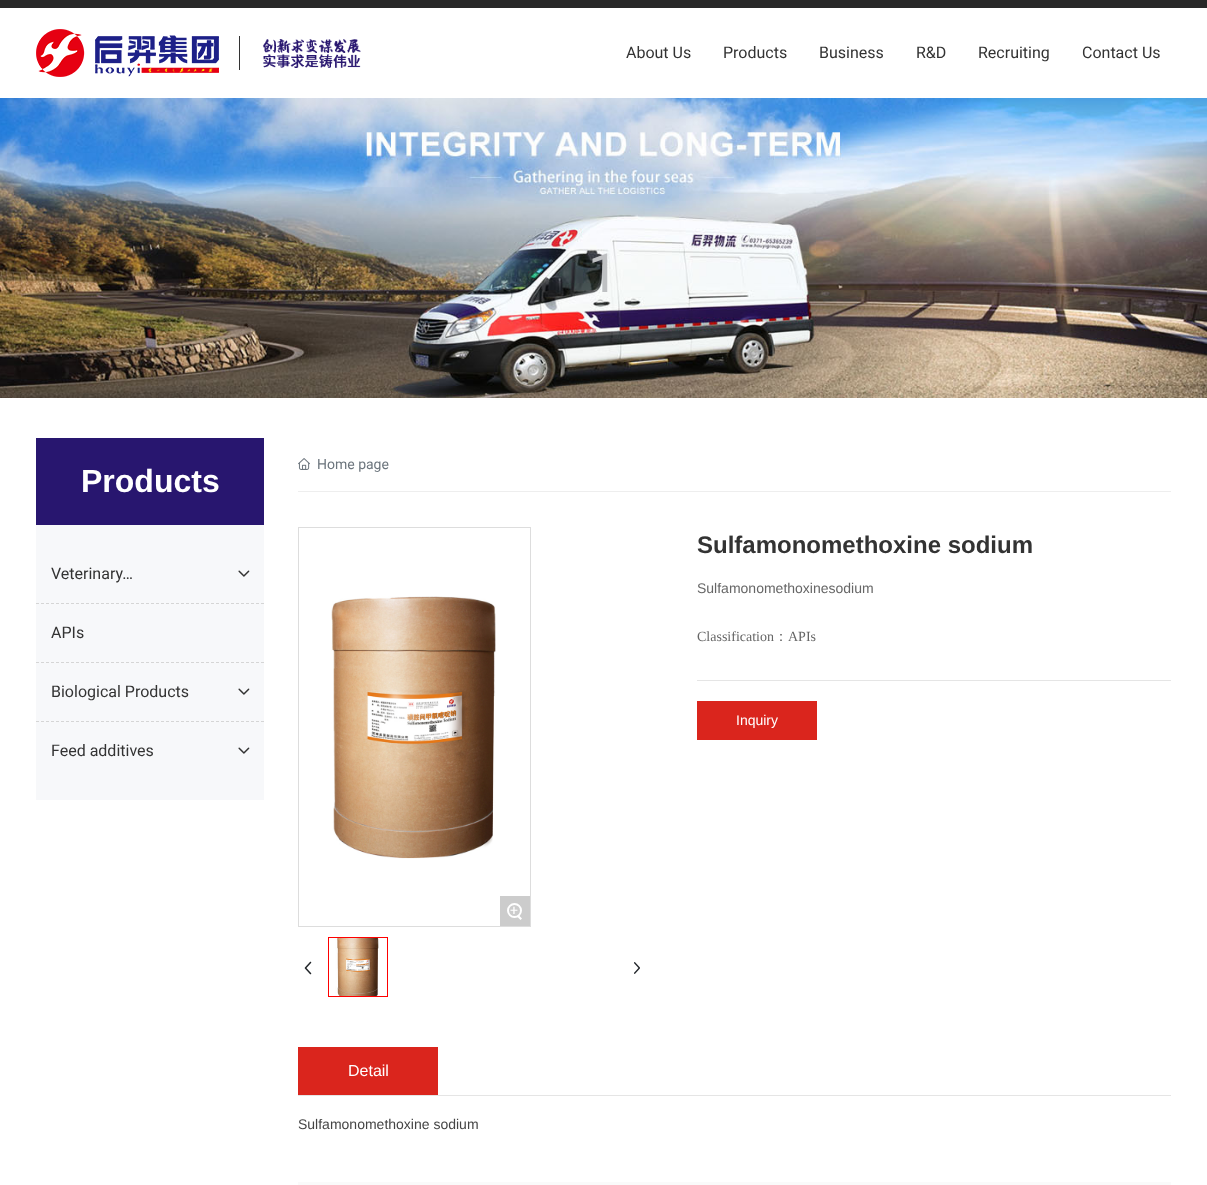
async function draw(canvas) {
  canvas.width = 1207;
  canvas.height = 1185;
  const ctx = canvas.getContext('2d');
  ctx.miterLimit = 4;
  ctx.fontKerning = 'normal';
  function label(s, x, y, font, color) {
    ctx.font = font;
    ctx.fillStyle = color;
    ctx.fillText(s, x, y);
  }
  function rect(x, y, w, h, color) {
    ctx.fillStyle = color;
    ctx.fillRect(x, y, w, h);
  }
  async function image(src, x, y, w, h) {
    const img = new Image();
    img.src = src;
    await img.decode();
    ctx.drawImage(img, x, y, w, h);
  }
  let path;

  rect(0, 0, 1207, 1185, '#fff');
  rect(0, 0, 1207, 8, '#282828');
  await image('assets/img1.png', 36, 29, 183, 48);
  rect(239, 36, 1, 34, '#333');
  await image('assets/img2.png', 262, 39, 99, 29);
  label('About Us', 626, 58, '16px Roboto', '#333');
  label('Products', 723, 58, '16px Roboto', '#333');
  label('Business', 819, 58, '16px Roboto', '#333');
  label('R&D', 916, 58, '16px Roboto', '#333');
  label('Recruiting', 978, 58, '16px Roboto', '#333');
  label('Contact Us', 1082, 58, '16px Roboto', '#333');
  await image('assets/img3.png', 0, 98, 1207, 300);
  label('1', 588, 292, '54px Roboto', '#bfc1c3');
  rect(36, 438, 228, 87, '#28166f');
  label('Products', 81, 492, 'bold 32px Liberation Sans', '#fff');
  rect(36, 525, 228, 275, '#f7f8fa');
  path = new Path2D('M36 603.5H264');
  ctx.strokeStyle = '#d5d5d5';
  ctx.setLineDash([3, 2]);
  ctx.stroke(path);
  label('Veterinary…', 51, 579, '16px Roboto', '#333');
  await image('assets/img4.png', 238, 570, 12, 7);
  path = new Path2D('M36 662.5H264');
  ctx.stroke(path);
  label('APIs', 51, 638, '16px Roboto', '#333');
  path = new Path2D('M36 721.5H264');
  ctx.stroke(path);
  label('Biological Products', 51, 697, '16px Roboto', '#333');
  await image('assets/img4.png', 238, 688, 12, 7);
  label('Feed additives', 51, 756, '16px Roboto', '#333');
  await image('assets/img4.png', 238, 747, 12, 7);
  await image('assets/img5.png', 298, 458, 12, 12);
  label('Home page', 317, 469, '14px Roboto', '#6c757d');
  rect(298, 491, 873, 1, '#eee');
  rect(298, 1182, 873, 3, '#fafafa');
  label('Sulfamonomethoxine sodium', 697, 553, 'bold 24px Liberation Sans', '#333');
  label('Sulfamonomethoxinesodium', 697, 593, '14px Liberation Sans', '#666');
  label('Classification', 697, 641, '14px Liberation Serif', '#666');
  label('：', 774, 641, '500 14px WenQuanYi Zen Hei', '#666');
  label('APIs', 788, 641, '14px Liberation Serif', '#666');
  rect(697, 680, 474, 1, '#e5e5e5');
  rect(697, 701, 120, 39, '#da251d');
  label('Inquiry', 736, 725, '14px Liberation Sans', '#fff');
  ctx.strokeStyle = '#ddd';
  ctx.setLineDash([]);
  ctx.strokeRect(298.5, 527.5, 232, 399);
  await image('assets/img6.png', 331, 596, 165, 263);
  rect(500, 896, 30, 30, '#ccc');
  ctx.beginPath();
  ctx.arc(514.5, 910.5, 6.5, 0, 2 * Math.PI);
  ctx.strokeStyle = '#fff';
  ctx.lineWidth = 2;
  ctx.stroke();
  label('+', 510, 915, '14px Roboto', '#fff');
  path = new Path2D('M518.5 915L522 918.5L520.5 920L517 916.5Z');
  ctx.fill(path);
  ctx.strokeStyle = '#f00';
  ctx.lineWidth = 1;
  ctx.strokeRect(328.5, 937.5, 59, 59);
  await image('assets/img7.png', 335, 938, 44, 58);
  await image('assets/img8.png', 304, 961, 8, 14);
  await image('assets/img9.png', 634, 962, 6, 12);
  rect(298, 1095, 873, 1, '#e5e5e5');
  rect(298, 1047, 140, 48, '#da251d');
  label('Detail', 348, 1076, '16px Liberation Sans', '#fff');
  label('Sulfamonomethoxine sodium', 298, 1129, '14px Liberation Sans', '#444');
}

draw(document.querySelector('canvas'));
